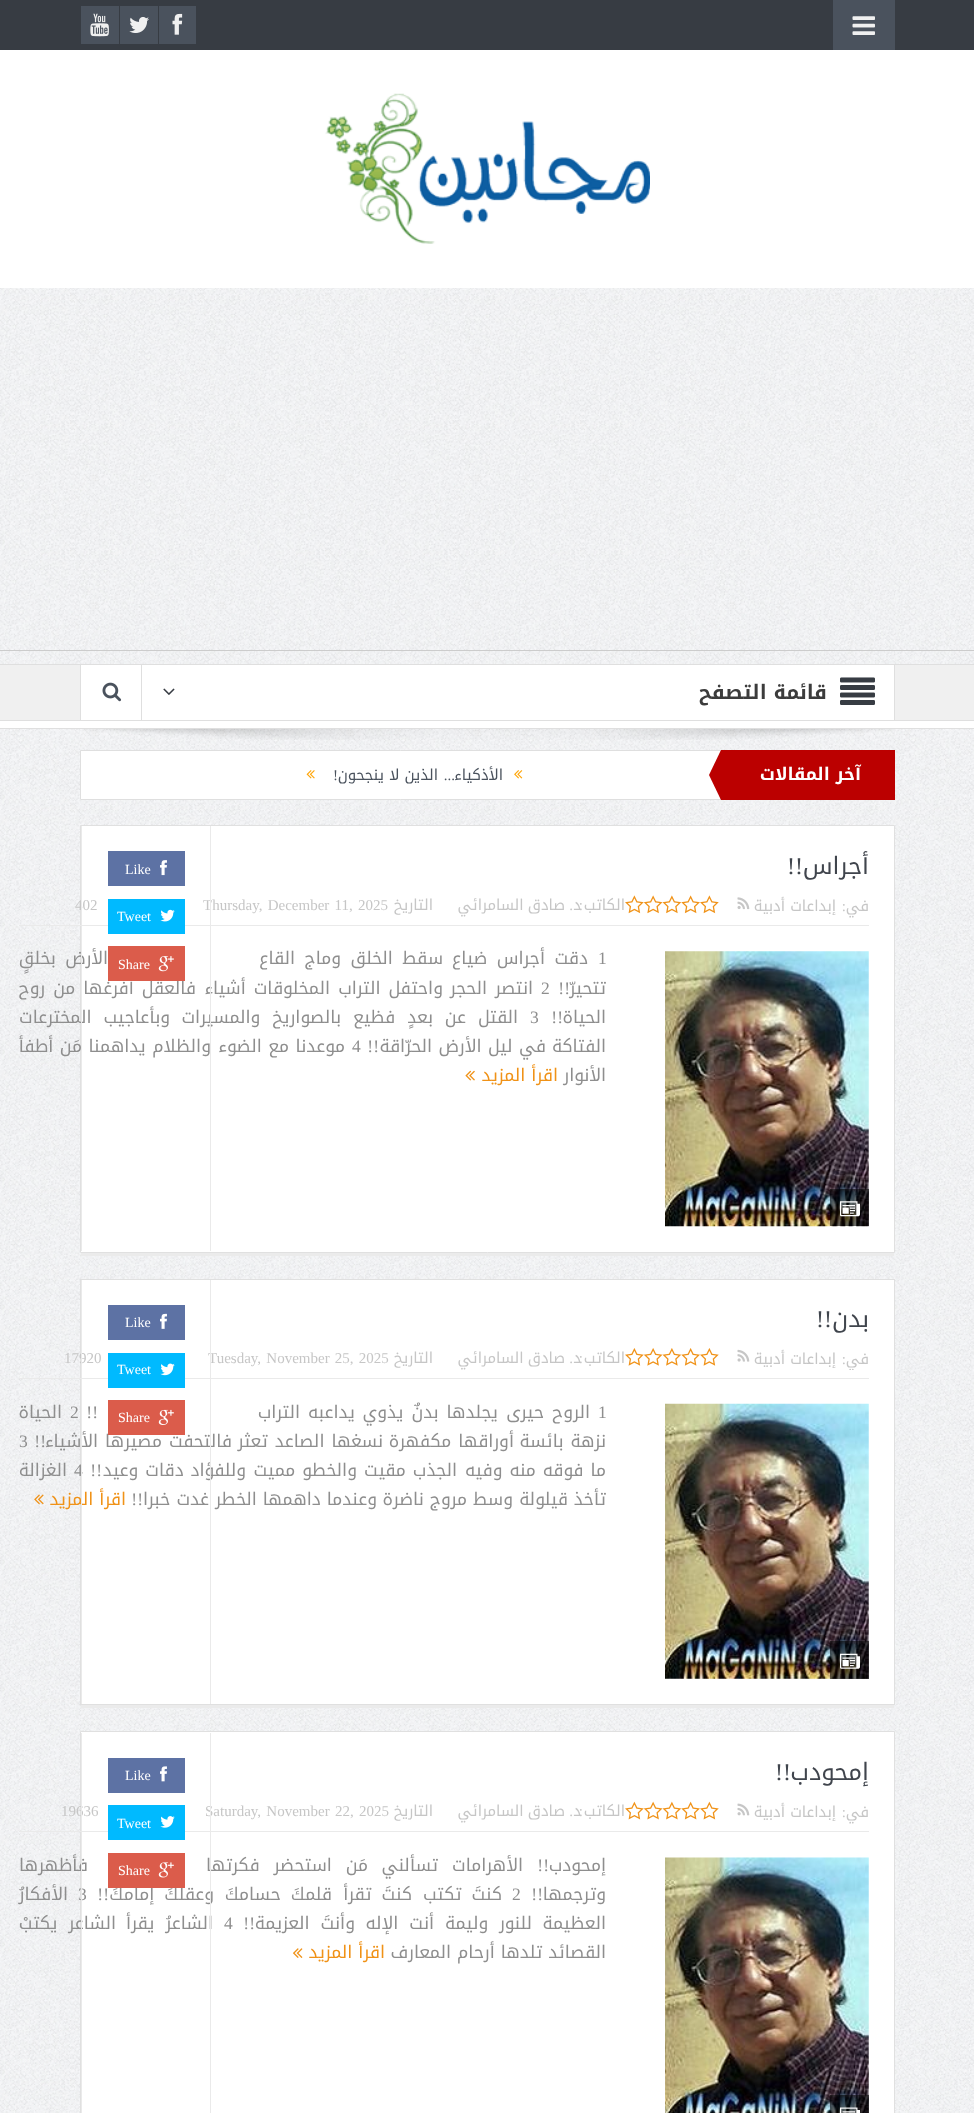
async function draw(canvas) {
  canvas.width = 974;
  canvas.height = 2113;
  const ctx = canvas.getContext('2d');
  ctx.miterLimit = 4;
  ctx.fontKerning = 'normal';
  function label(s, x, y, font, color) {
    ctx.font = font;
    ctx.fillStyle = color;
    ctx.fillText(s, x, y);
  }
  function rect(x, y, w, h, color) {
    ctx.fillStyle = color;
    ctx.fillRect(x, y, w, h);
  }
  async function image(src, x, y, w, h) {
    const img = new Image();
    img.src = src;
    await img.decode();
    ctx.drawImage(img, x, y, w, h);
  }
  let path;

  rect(0, 0, 974, 2113, '#fff');
  await image('assets/img1.png', 0, 288, 974, 1825);
  rect(0, 0, 974, 50, '#373c43');
  rect(833, 0, 62, 50, '#4a525d');
  await image('assets/img2.png', 852, 16, 23, 19);
  rect(159, 6, 37, 38, '#4a525d');
  await image('assets/img3.png', 172, 13, 11, 22);
  rect(120, 6, 38, 38, '#4a525d');
  await image('assets/img4.png', 129, 17, 20, 16);
  rect(81, 6, 38, 38, '#4a525d');
  await image('assets/img5.png', 90, 13, 19, 24);
  await image('assets/img6.png', 325, 93, 325, 151);
  rect(0, 650, 974, 1, '#ccc');
  rect(0, 721, 974, 7, '#fff');
  rect(0, 664, 974, 1, '#dfdfdf');
  rect(0, 728, 974, 1, '#dfdfdf');
  rect(0, 665, 974, 55, '#f0f0f0');
  rect(0, 720, 974, 1, '#dfdfdf');
  rect(81, 665, 813, 55, '#fff');
  rect(894, 665, 1, 55, '#dfdfdf');
  await image('assets/img7.png', 840, 677, 35, 28);
  ctx.direction = 'rtl';
  label('قائمة التصفح', 827, 699, 'bold 20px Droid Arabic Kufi', '#3c3c3c');
  await image('assets/img8.png', 163, 688, 12, 7);
  rect(141, 665, 1, 55, '#dfdfdf');
  rect(80, 665, 1, 55, '#dfdfdf');
  await image('assets/img9.png', 102, 682, 20, 20);
  await image('assets/img10.png', 82, 729, 813, 11);
  rect(721, 750, 174, 50, '#b00');
  label('آخر المقالات', 861, 780, 'bold 17.5px Droid Arabic Kufi', '#fff');
  ctx.beginPath();
  ctx.rect(80.5, 750.5, 640, 49);
  ctx.fill();
  ctx.strokeStyle = '#dfdfdf';
  ctx.stroke();
  ctx.fillStyle = '#b00';
  path = new Path2D('M721 750V800L709 775Z');
  ctx.fill(path);
  await image('assets/img11.png', 514, 770, 9, 9);
  label('الأذكياء', 503, 780, '15px Droid Arabic Kufi', '#4a525d');
  label('الذين لا ينجحون', 438, 780, '15px Droid Arabic Kufi', '#4a525d');
  label('!', 338, 780, '15px Liberation Serif', '#4a525d');
  label('...', 455, 780, '15px Liberation Serif', '#4a525d');
  await image('assets/img12.png', 306, 770, 9, 9);
  ctx.fillStyle = '#fff';
  ctx.beginPath();
  ctx.rect(80.5, 825.5, 814, 427);
  ctx.fill();
  ctx.strokeStyle = '#e0e0e0';
  ctx.stroke();
  rect(19, 925, 850, 1, '#eaeaea');
  label('أجراس', 869, 874, '24px Droid Arabic Kufi', '#40454d');
  label('!!', 803, 874, '24px Liberation Serif', '#40454d');
  label('في', 869, 911, '15px Droid Arabic Kufi', '#c6c6c6');
  label(':', 846, 911, '15px Liberation Serif', '#c6c6c6');
  label('إبداعات أدبية', 836, 911, '15px Droid Arabic Kufi', '#c6c6c6');
  await image('assets/img13.png', 737, 897, 13, 13);
  await image('assets/img14.png', 625, 895, 94, 19);
  label('الكاتب', 625, 910, '15px Droid Arabic Kufi', '#c6c6c6');
  label(':', 583, 910, '15px Liberation Serif', '#c6c6c6');
  label('د', 581, 910, '15px Droid Arabic Kufi', '#c6c6c6');
  label('.', 573, 910, '15px Liberation Serif', '#c6c6c6');
  ctx.wordSpacing = '-1px';
  label('صادق السامرائي', 565, 910, '15px Droid Arabic Kufi', '#c6c6c6');
  ctx.wordSpacing = '0px';
  label('التاريخ', 433, 910, '15px Droid Arabic Kufi', '#c6c6c6');
  ctx.wordSpacing = '1.5px';
  ctx.direction = 'ltr';
  label('Thursday, December 11, 2025', 203, 910, '15px Liberation Serif', '#c6c6c6');
  ctx.wordSpacing = '0px';
  label('402', 75, 910, '15px Liberation Serif', '#c6c6c6');
  await image('assets/img15.png', 665, 951, 204, 276);
  rect(830, 1189, 39, 37, '#00000099');
  await image('assets/img16.png', 840, 1201, 20, 16);
  label('1', 598, 964, '17.5px Liberation Serif', '#8e8e8e');
  ctx.wordSpacing = '3.5px';
  ctx.direction = 'rtl';
  label('دقت أجراس ضياع', 588, 964, '17.5px Droid Arabic Kufi', '#8e8e8e');
  label('سقط الخلق وماج القاع', 443, 964, '17.5px Droid Arabic Kufi', '#8e8e8e');
  label('والأرض بخلقٍ', 118, 964, '17.5px Droid Arabic Kufi', '#8e8e8e');
  ctx.wordSpacing = '0px';
  label('تتحيرّ', 606, 994, '17.5px Droid Arabic Kufi', '#8e8e8e');
  label('!!', 570, 994, '17.5px Liberation Serif', '#8e8e8e');
  ctx.direction = 'ltr';
  label('2', 541, 994, '17.5px Liberation Serif', '#8e8e8e');
  ctx.wordSpacing = '2px';
  ctx.direction = 'rtl';
  label('انتصر الحجر', 533, 994, '17.5px Droid Arabic Kufi', '#8e8e8e');
  label('واحتفل التراب', 443, 994, '17.5px Droid Arabic Kufi', '#8e8e8e');
  label('المخلوقات أشياء', 330, 994, '17.5px Droid Arabic Kufi', '#8e8e8e');
  label('فالعقل أفرغها من روح', 196, 994, '17.5px Droid Arabic Kufi', '#8e8e8e');
  ctx.wordSpacing = '0px';
  label('الحياة', 606, 1023, '17.5px Droid Arabic Kufi', '#8e8e8e');
  label('!!', 563, 1023, '17.5px Liberation Serif', '#8e8e8e');
  ctx.direction = 'ltr';
  label('3', 530, 1023, '17.5px Liberation Serif', '#8e8e8e');
  ctx.wordSpacing = '6px';
  ctx.direction = 'rtl';
  label('القتل عن بعدٍ فظيع', 518, 1023, '17.5px Droid Arabic Kufi', '#8e8e8e');
  label('بالصواريخ والمسيرات', 341, 1023, '17.5px Droid Arabic Kufi', '#8e8e8e');
  label('وبأعاجيب المخترعات', 170, 1023, '17.5px Droid Arabic Kufi', '#8e8e8e');
  ctx.wordSpacing = '0px';
  label('الفتاكة', 606, 1052, '17.5px Droid Arabic Kufi', '#8e8e8e');
  ctx.wordSpacing = '0.5px';
  label('في ليل الأرض الحرّاقة', 546, 1052, '17.5px Droid Arabic Kufi', '#8e8e8e');
  ctx.wordSpacing = '0px';
  label('!!', 379, 1052, '17.5px Liberation Serif', '#8e8e8e');
  ctx.direction = 'ltr';
  label('4', 352, 1052, '17.5px Liberation Serif', '#8e8e8e');
  ctx.wordSpacing = '0.5px';
  ctx.direction = 'rtl';
  label('موعدنا مع الضوء', 345, 1052, '17.5px Droid Arabic Kufi', '#8e8e8e');
  label('والظلام يداهمنا', 211, 1052, '17.5px Droid Arabic Kufi', '#8e8e8e');
  label('مَن أطفأ', 82, 1052, '17.5px Droid Arabic Kufi', '#8e8e8e');
  ctx.wordSpacing = '0px';
  label('الأنوار', 606, 1081, '17.5px Droid Arabic Kufi', '#8e8e8e');
  label('اقرأ المزيد', 558, 1081, '17.5px Droid Arabic Kufi', '#f09217');
  await image('assets/img17.png', 465, 1070, 10, 11);
  rect(210, 826, 1, 425, '#eaeaea');
  rect(81, 826, 1, 425, '#eaeaea');
  rect(108, 851, 77, 35, '#5d72a4');
  await image('assets/img18.png', 160, 860, 7, 16);
  ctx.direction = 'ltr';
  label('Like', 125, 874, '14px Liberation Serif', '#fff');
  rect(108, 899, 77, 35, '#00baff');
  await image('assets/img19.png', 160, 909, 15, 13);
  label('Tweet', 117, 921, '14px Liberation Serif', '#fff');
  rect(108, 946, 77, 35, '#db5c4b');
  await image('assets/img20.png', 158, 956, 16, 16);
  label('Share', 118, 969, '14px Liberation Serif', '#fff');
  rect(81, 1253, 813, 3, '#ebebeb');
  rect(82, 1280, 812, 424, '#fff');
  ctx.strokeRect(80.5, 1279.5, 814, 425);
  rect(19, 1378, 850, 1, '#eaeaea');
  ctx.direction = 'rtl';
  label('بدن', 869, 1327, '24px Droid Arabic Kufi', '#40454d');
  label('!!', 832, 1327, '24px Liberation Serif', '#40454d');
  ctx.save();
  ctx.beginPath();
  ctx.rect(19, 1348, 850, 22);
  ctx.clip();
  label('في', 869, 1364, '15px Droid Arabic Kufi', '#c6c6c6');
  ctx.restore();
  label(':', 846, 1364, '15px Liberation Serif', '#c6c6c6');
  label('إبداعات أدبية', 836, 1364, '15px Droid Arabic Kufi', '#c6c6c6');
  await image('assets/img21.png', 737, 1349, 13, 13);
  await image('assets/img22.png', 625, 1348, 94, 18);
  label('الكاتب', 625, 1363, '15px Droid Arabic Kufi', '#c6c6c6');
  label(':', 583, 1363, '15px Liberation Serif', '#c6c6c6');
  label('د', 581, 1363, '15px Droid Arabic Kufi', '#c6c6c6');
  label('.', 573, 1363, '15px Liberation Serif', '#c6c6c6');
  ctx.wordSpacing = '-1px';
  label('صادق السامرائي', 565, 1363, '15px Droid Arabic Kufi', '#c6c6c6');
  ctx.wordSpacing = '0px';
  label('التاريخ', 433, 1363, '15px Droid Arabic Kufi', '#c6c6c6');
  ctx.wordSpacing = '1.5px';
  ctx.direction = 'ltr';
  label('Tuesday, November 25, 2025', 208, 1363, '15px Liberation Serif', '#c6c6c6');
  ctx.wordSpacing = '0px';
  label('17920', 64, 1363, '15px Liberation Serif', '#c6c6c6');
  await image('assets/img23.png', 665, 1403, 204, 276);
  rect(830, 1641, 39, 38, '#00000099');
  await image('assets/img24.png', 840, 1653, 20, 16);
  label('1', 598, 1418, '17.5px Liberation Serif', '#8e8e8e');
  ctx.wordSpacing = '2px';
  ctx.direction = 'rtl';
  label('الروح حيرى', 590, 1418, '17.5px Droid Arabic Kufi', '#8e8e8e');
  label('يجلدها بدنٌ يذوي', 498, 1418, '17.5px Droid Arabic Kufi', '#8e8e8e');
  label('يداعبه التراب', 355, 1418, '17.5px Droid Arabic Kufi', '#8e8e8e');
  ctx.wordSpacing = '0px';
  label('!!', 98, 1418, '17.5px Liberation Serif', '#8e8e8e');
  ctx.direction = 'ltr';
  label('2', 70, 1418, '17.5px Liberation Serif', '#8e8e8e');
  ctx.direction = 'rtl';
  label('الحياة', 62, 1418, '17.5px Droid Arabic Kufi', '#8e8e8e');
  ctx.wordSpacing = '1px';
  label('نزهة بائسة', 606, 1447, '17.5px Droid Arabic Kufi', '#8e8e8e');
  label('أوراقها مكفهرة', 514, 1447, '17.5px Droid Arabic Kufi', '#8e8e8e');
  label('نسغها الصاعد تعثر', 383, 1447, '17.5px Droid Arabic Kufi', '#8e8e8e');
  label('فالتحفت مصيرها الأشياء', 232, 1447, '17.5px Droid Arabic Kufi', '#8e8e8e');
  ctx.wordSpacing = '0px';
  label('!!', 46, 1447, '17.5px Liberation Serif', '#8e8e8e');
  ctx.direction = 'ltr';
  label('3', 19, 1447, '17.5px Liberation Serif', '#8e8e8e');
  ctx.wordSpacing = '1px';
  ctx.direction = 'rtl';
  label('ما فوقه منه وفيه', 606, 1476, '17.5px Droid Arabic Kufi', '#8e8e8e');
  label('الجذب مقيت', 457, 1476, '17.5px Droid Arabic Kufi', '#8e8e8e');
  label('والخطو مميت', 357, 1476, '17.5px Droid Arabic Kufi', '#8e8e8e');
  label('وللفؤاد دقات وعيد', 246, 1476, '17.5px Droid Arabic Kufi', '#8e8e8e');
  ctx.wordSpacing = '0px';
  label('!!', 102, 1476, '17.5px Liberation Serif', '#8e8e8e');
  ctx.direction = 'ltr';
  label('4', 74, 1476, '17.5px Liberation Serif', '#8e8e8e');
  ctx.direction = 'rtl';
  label('الغزالة', 67, 1476, '17.5px Droid Arabic Kufi', '#8e8e8e');
  label('تأخذ قيلولة', 606, 1505, '17.5px Droid Arabic Kufi', '#8e8e8e');
  label('وسط مروج ناضرة', 513, 1505, '17.5px Droid Arabic Kufi', '#8e8e8e');
  label('وعندما داهمها الخطر', 377, 1505, '17.5px Droid Arabic Kufi', '#8e8e8e');
  label('غدت خبرا', 209, 1505, '17.5px Droid Arabic Kufi', '#8e8e8e');
  label('!!', 143, 1505, '17.5px Liberation Serif', '#8e8e8e');
  label('اقرأ المزيد', 126, 1505, '17.5px Droid Arabic Kufi', '#f09217');
  await image('assets/img25.png', 34, 1494, 10, 11);
  rect(210, 1280, 1, 424, '#eaeaea');
  rect(81, 1280, 1, 424, '#eaeaea');
  rect(108, 1305, 77, 35, '#5d72a4');
  await image('assets/img26.png', 160, 1313, 7, 16);
  ctx.direction = 'ltr';
  label('Like', 125, 1327, '14px Liberation Serif', '#fff');
  rect(108, 1353, 77, 35, '#00baff');
  await image('assets/img27.png', 160, 1363, 15, 13);
  label('Tweet', 117, 1374, '14px Liberation Serif', '#fff');
  rect(108, 1400, 77, 35, '#db5c4b');
  await image('assets/img28.png', 158, 1409, 16, 16);
  label('Share', 118, 1422, '14px Liberation Serif', '#fff');
  rect(81, 1705, 813, 3, '#ebebeb');
  ctx.fillStyle = '#fff';
  ctx.beginPath();
  ctx.rect(80.5, 1731.5, 814, 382);
  ctx.fill();
  ctx.stroke();
  rect(19, 1831, 850, 1, '#eaeaea');
  ctx.direction = 'rtl';
  label('إمحودب', 869, 1780, '24px Droid Arabic Kufi', '#40454d');
  label('!!', 791, 1780, '24px Liberation Serif', '#40454d');
  label('في', 869, 1817, '15px Droid Arabic Kufi', '#c6c6c6');
  label(':', 846, 1817, '15px Liberation Serif', '#c6c6c6');
  label('إبداعات أدبية', 836, 1817, '15px Droid Arabic Kufi', '#c6c6c6');
  await image('assets/img29.png', 737, 1803, 13, 13);
  await image('assets/img30.png', 625, 1801, 94, 19);
  label('الكاتب', 625, 1816, '15px Droid Arabic Kufi', '#c6c6c6');
  label(':', 583, 1816, '15px Liberation Serif', '#c6c6c6');
  label('د', 581, 1816, '15px Droid Arabic Kufi', '#c6c6c6');
  label('.', 573, 1816, '15px Liberation Serif', '#c6c6c6');
  ctx.wordSpacing = '-1px';
  label('صادق السامرائي', 565, 1816, '15px Droid Arabic Kufi', '#c6c6c6');
  ctx.wordSpacing = '0px';
  label('التاريخ', 433, 1816, '15px Droid Arabic Kufi', '#c6c6c6');
  ctx.wordSpacing = '1.5px';
  ctx.direction = 'ltr';
  label('Saturday, November 22, 2025', 205, 1816, '15px Liberation Serif', '#c6c6c6');
  ctx.wordSpacing = '0px';
  label('19636', 61, 1816, '15px Liberation Serif', '#c6c6c6');
  await image('assets/img31.png', 665, 1857, 204, 256);
  rect(830, 2095, 39, 18, '#00000099');
  await image('assets/img32.png', 840, 2107, 20, 6);
  ctx.direction = 'rtl';
  label('إمحودب', 606, 1871, '17.5px Droid Arabic Kufi', '#8e8e8e');
  label('!!', 549, 1871, '17.5px Liberation Serif', '#8e8e8e');
  ctx.wordSpacing = '8px';
  label('الأهرامات تسألني', 523, 1871, '17.5px Droid Arabic Kufi', '#8e8e8e');
  label('مَن استحضر فكرتها', 368, 1871, '17.5px Droid Arabic Kufi', '#8e8e8e');
  ctx.wordSpacing = '0px';
  label('فأظهرها', 88, 1871, '17.5px Droid Arabic Kufi', '#8e8e8e');
  label('وترجمها', 606, 1900, '17.5px Droid Arabic Kufi', '#8e8e8e');
  label('!!', 543, 1900, '17.5px Liberation Serif', '#8e8e8e');
  ctx.direction = 'ltr';
  label('2', 512, 1900, '17.5px Liberation Serif', '#8e8e8e');
  ctx.wordSpacing = '4px';
  ctx.direction = 'rtl';
  label('كنتَ تكتب', 502, 1900, '17.5px Droid Arabic Kufi', '#8e8e8e');
  label('كنتَ تقرأ', 412, 1900, '17.5px Droid Arabic Kufi', '#8e8e8e');
  label('قلمكَ حسامكَ', 332, 1900, '17.5px Droid Arabic Kufi', '#8e8e8e');
  label('وعقلكَ إمامكَ', 214, 1900, '17.5px Droid Arabic Kufi', '#8e8e8e');
  ctx.wordSpacing = '0px';
  label('!!', 109, 1900, '17.5px Liberation Serif', '#8e8e8e');
  ctx.direction = 'ltr';
  label('3', 78, 1900, '17.5px Liberation Serif', '#8e8e8e');
  ctx.direction = 'rtl';
  label('الأفكارُ', 68, 1900, '17.5px Droid Arabic Kufi', '#8e8e8e');
  label('العظيمة', 606, 1929, '17.5px Droid Arabic Kufi', '#8e8e8e');
  ctx.wordSpacing = '5px';
  label('للنور وليمة', 532, 1929, '17.5px Droid Arabic Kufi', '#8e8e8e');
  label('أنت الإله', 434, 1929, '17.5px Droid Arabic Kufi', '#8e8e8e');
  label('وأنتَ العزيمة', 355, 1929, '17.5px Droid Arabic Kufi', '#8e8e8e');
  ctx.wordSpacing = '0px';
  label('!!', 255, 1929, '17.5px Liberation Serif', '#8e8e8e');
  ctx.direction = 'ltr';
  label('4', 224, 1929, '17.5px Liberation Serif', '#8e8e8e');
  ctx.wordSpacing = '5px';
  ctx.direction = 'rtl';
  label('الشاعرُ يقرأ', 213, 1929, '17.5px Droid Arabic Kufi', '#8e8e8e');
  label('الشاعر يكتبْ', 116, 1929, '17.5px Droid Arabic Kufi', '#8e8e8e');
  ctx.wordSpacing = '0px';
  label('القصائد تلدها أرحام المعارف', 606, 1958, '17.5px Droid Arabic Kufi', '#8e8e8e');
  label('اقرأ المزيد', 385, 1958, '17.5px Droid Arabic Kufi', '#f09217');
  await image('assets/img33.png', 293, 1948, 10, 10);
  rect(210, 1733, 1, 380, '#eaeaea');
  rect(81, 1733, 1, 380, '#eaeaea');
  rect(108, 1758, 77, 35, '#5d72a4');
  await image('assets/img34.png', 160, 1766, 7, 16);
  ctx.direction = 'ltr';
  label('Like', 125, 1780, '14px Liberation Serif', '#fff');
  rect(108, 1805, 77, 35, '#00baff');
  await image('assets/img35.png', 160, 1816, 15, 12);
  label('Tweet', 117, 1828, '14px Liberation Serif', '#fff');
  rect(108, 1853, 77, 35, '#db5c4b');
  await image('assets/img36.png', 158, 1862, 16, 16);
  label('Share', 118, 1875, '14px Liberation Serif', '#fff');
}

draw(document.querySelector('canvas'));
